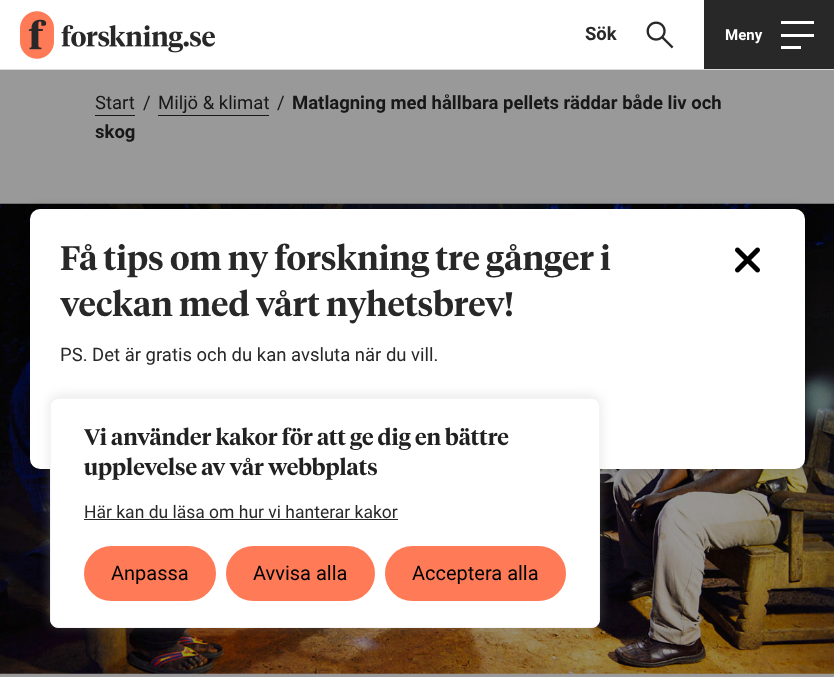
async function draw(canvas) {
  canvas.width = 834;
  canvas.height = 677;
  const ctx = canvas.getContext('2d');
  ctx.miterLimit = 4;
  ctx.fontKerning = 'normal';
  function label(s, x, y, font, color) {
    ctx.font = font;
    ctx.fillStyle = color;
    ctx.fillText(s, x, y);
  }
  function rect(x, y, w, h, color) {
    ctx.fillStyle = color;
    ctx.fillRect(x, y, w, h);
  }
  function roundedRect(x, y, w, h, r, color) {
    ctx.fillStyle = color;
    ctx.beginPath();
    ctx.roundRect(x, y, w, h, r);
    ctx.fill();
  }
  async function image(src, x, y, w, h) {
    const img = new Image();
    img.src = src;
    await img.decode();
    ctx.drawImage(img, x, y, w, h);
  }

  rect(0, 0, 834, 677, '#999');
  rect(0, 69, 834, 1, '#dad9d9');
  rect(0, 0, 704, 69, '#fff');
  await image('assets/img1.png', 20, 11, 195, 48);
  label('Sök', 585, 40, 'bold 18.5px Roboto', '#282828');
  await image('assets/img2.png', 646, 21, 28, 28);
  rect(704, 0, 130, 69, '#282828');
  label('Meny', 725, 40, 'bold 15px Roboto', '#fff');
  rect(781, 21, 33, 3, '#fff');
  rect(781, 34, 33, 3, '#fff');
  rect(781, 46, 20, 3, '#fff');
  label('Start', 95, 109, '18.5px Roboto', '#181818');
  rect(95, 115, 40, 1, '#181818');
  label('/', 143, 109, '18.5px Roboto', '#181818');
  label('Miljö & klimat', 158, 109, '18.5px Roboto', '#181818');
  rect(158, 115, 111, 1, '#181818');
  label('/', 277, 109, '18.5px Roboto', '#181818');
  label('Matlagning med hållbara pellets räddar både liv och', 292, 109, 'bold 18.5px Roboto', '#181818');
  label('skog', 95, 138, 'bold 18.5px Roboto', '#181818');
  await image('assets/img3.png', 0, 203, 834, 471);
  ctx.fillStyle = '#00000033';
  ctx.filter = 'blur(6px)';
  ctx.beginPath();
  ctx.roundRect(30, 209, 775, 260, 10);
  ctx.fill();
  ctx.filter = 'none';
  roundedRect(30, 209, 775, 260, 10, '#fff');
  label('Få tips om ny forskning tre gånger i', 60, 270, '600 33.75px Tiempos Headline', '#282828');
  label('veckan med vårt nyhetsbrev!', 60, 316, '600 33.75px Tiempos Headline', '#282828');
  await image('assets/img4.png', 735, 247, 25, 26);
  label('PS. Det är gratis och du kan avsluta när du vill.', 60, 361, '18.5px Roboto', '#282828');
  ctx.fillStyle = '#acabab4d';
  ctx.filter = 'blur(6px)';
  ctx.beginPath();
  ctx.roundRect(50, 396, 550, 230, 8);
  ctx.fill();
  ctx.filter = 'none';
  ctx.fillStyle = '#fff';
  ctx.beginPath();
  ctx.roundRect(50.5, 398.5, 549, 229, 7.5);
  ctx.fill();
  ctx.strokeStyle = '#f4f4f4';
  ctx.stroke();
  label('Vi använder kakor för att ge dig en bättre', 84, 445, '600 22.5px Tiempos Headline', '#212121');
  label('upplevelse av vår webbplats', 84, 475, '600 22.5px Tiempos Headline', '#212121');
  label('Här kan du läsa om hur vi hanterar kakor', 84, 518, '17.5px Roboto', '#282828');
  rect(84, 519, 314, 1, '#282828');
  ctx.fillStyle = '#ff7b57';
  ctx.beginPath();
  ctx.roundRect(85.5, 547.5, 129, 52, 26);
  ctx.fill();
  ctx.strokeStyle = '#ff7b57';
  ctx.lineWidth = 3;
  ctx.stroke();
  label('Anpassa', 111, 580, '20px Roboto', '#000');
  ctx.fillStyle = '#ff7b57';
  ctx.beginPath();
  ctx.roundRect(227.5, 547.5, 146, 52, 26);
  ctx.fill();
  ctx.stroke();
  label('Avvisa alla', 253, 580, '20px Roboto', '#000');
  ctx.fillStyle = '#ff7b57';
  ctx.beginPath();
  ctx.roundRect(386.5, 547.5, 178, 52, 26);
  ctx.fill();
  ctx.stroke();
  label('Acceptera alla', 412, 580, '20px Roboto', '#000');
}

draw(document.querySelector('canvas'));
